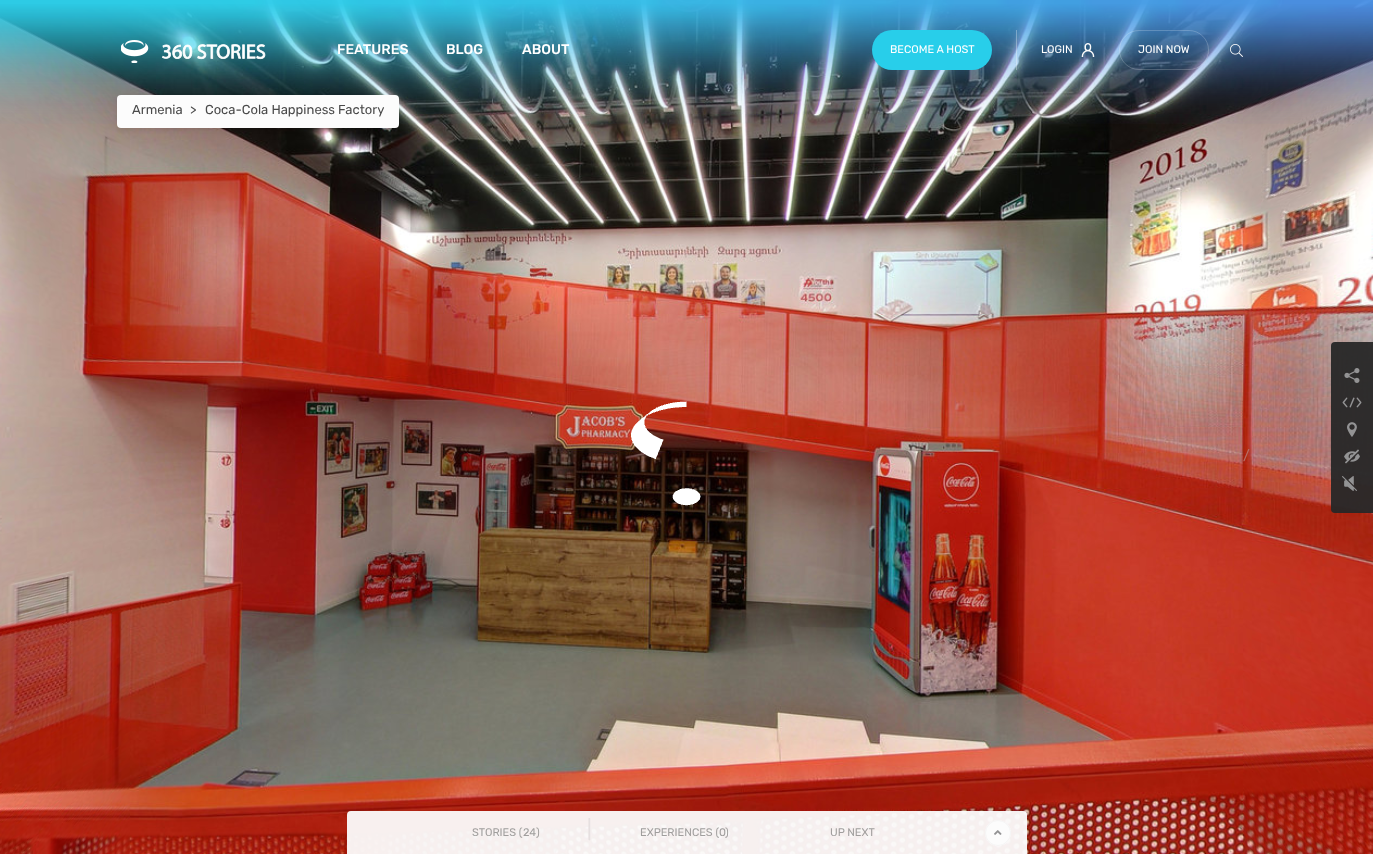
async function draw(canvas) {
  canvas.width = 1373;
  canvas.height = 854;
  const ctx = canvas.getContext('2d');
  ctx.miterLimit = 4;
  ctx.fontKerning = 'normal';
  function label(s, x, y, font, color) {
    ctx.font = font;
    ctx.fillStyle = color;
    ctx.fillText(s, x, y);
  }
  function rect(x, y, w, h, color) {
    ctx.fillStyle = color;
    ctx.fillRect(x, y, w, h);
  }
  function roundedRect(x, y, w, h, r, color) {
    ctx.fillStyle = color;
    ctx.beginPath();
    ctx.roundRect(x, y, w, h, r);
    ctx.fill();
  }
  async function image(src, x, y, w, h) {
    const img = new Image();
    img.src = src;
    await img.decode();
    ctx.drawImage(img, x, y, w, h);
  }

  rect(0, 0, 1373, 854, '#fff');
  await image('assets/img4.png', 0, 0, 1373, 854);
  await image('assets/img5.png', 0, 0, 1373, 124);
  await image('assets/img1.png', 121, 40, 145, 23);
  label('FEATURES', 337, 54, '500 14px Rubik', '#fff');
  label('BLOG', 446, 54, '500 14px Rubik', '#fff');
  label('ABOUT', 522, 54, '500 14px Rubik', '#fff');
  roundedRect(872, 30, 120, 40, 20, '#28ceea');
  label('BECOME A HOST', 890, 53, '11px Rubik', '#fff');
  rect(1016, 30, 1, 40, '#ffffff4d');
  label('LOGIN', 1041, 53, '11px Rubik', '#fff');
  await image('assets/img2.png', 1081, 43, 14, 14);
  ctx.beginPath();
  ctx.roundRect(1119.5, 30.5, 89, 39, 19.5);
  ctx.strokeStyle = '#ffffff33';
  ctx.stroke();
  label('JOIN NOW', 1138, 53, '11px Rubik', '#fff');
  await image('assets/img3.png', 1230, 44, 13, 13);
  ctx.fillStyle = '#00000012';
  ctx.filter = 'blur(2px)';
  ctx.beginPath();
  ctx.roundRect(117, 97, 282, 33, 4);
  ctx.fill();
  ctx.filter = 'none';
  roundedRect(117, 95, 282, 33, 4, '#fcfcfc');
  label('Armenia', 132, 114, '13px Rubik', '#4a4a4a');
  label('>', 190, 114, '13px Rubik', '#4a4a4a');
  label('Coca-Cola Happiness Factory', 205, 114, '13px Rubik', '#4a4a4a');
  ctx.fillStyle = '#272727f2';
  ctx.beginPath();
  ctx.roundRect(1331, 342, 42, 171, [4, 0, 0, 4]);
  ctx.fill();
  await image('assets/img6.png', 1344, 368, 16, 15);
  await image('assets/img7.png', 1342, 397, 20, 11);
  await image('assets/img8.png', 1347, 422, 10, 15);
  label('/', 1243, 460, '14px Rubik', '#b56e68');
  await image('assets/img9.png', 1344, 449, 16, 15);
  await image('assets/img10.png', 1342, 476, 15, 15);
  ctx.fillStyle = '#fcfcfcf2';
  ctx.beginPath();
  ctx.roundRect(347, 811, 680, 43, [4, 4, 0, 0]);
  ctx.fill();
  label('STORIES (', 472, 836, '11px Rubik', '#a09e9d');
  label('24', 523, 836, '11px Rubik', '#a09e9d');
  label(')', 536, 836, '11px Rubik', '#a09e9d');
  label('|', 587, 836, '20px Rubik', '#e6e0e0');
  label('EXPERIENCES (', 640, 836, '11px Rubik', '#a09e9d');
  label('0', 719, 836, '11px Rubik', '#a09e9d');
  label(')', 725, 836, '11px Rubik', '#a09e9d');
  label('UP NEXT', 830, 836, '11px Rubik', '#a09e9d');
  ctx.fillStyle = '#fcfcfc';
  ctx.beginPath();
  ctx.arc(998, 833, 13, 0, 2 * Math.PI);
  ctx.fill();
  ctx.beginPath();
  ctx.arc(998, 833, 12.5, 0, 2 * Math.PI);
  ctx.strokeStyle = '#d7d7d733';
  ctx.stroke();
  await image('assets/img11.png', 994, 830, 8, 5);
}

draw(document.querySelector('canvas'));
